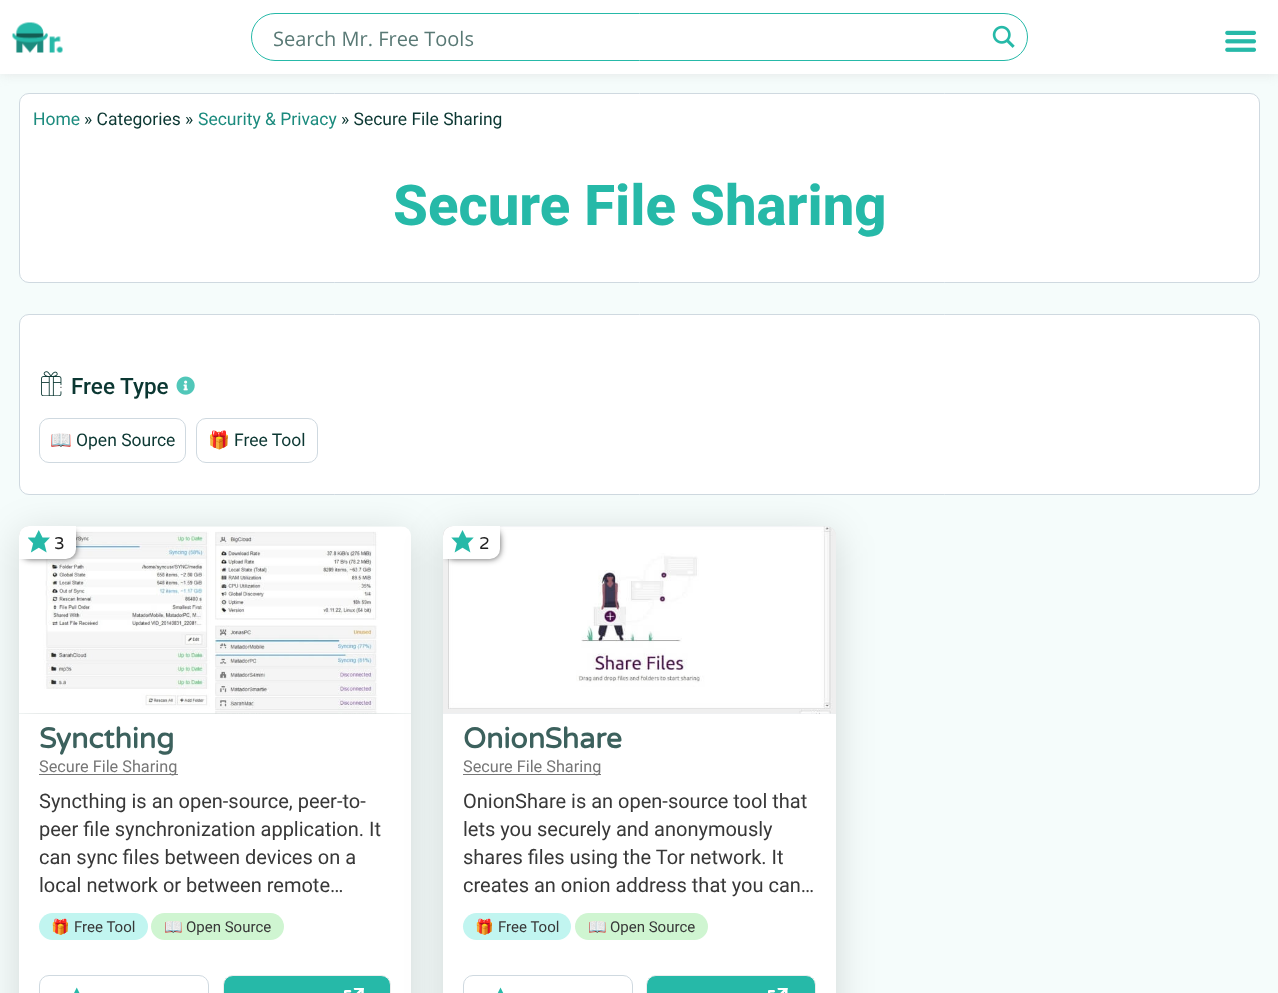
async function draw(canvas) {
  canvas.width = 1278;
  canvas.height = 993;
  const ctx = canvas.getContext('2d');
  ctx.miterLimit = 4;
  ctx.fontKerning = 'normal';
  function label(s, x, y, font, color) {
    ctx.font = font;
    ctx.fillStyle = color;
    ctx.fillText(s, x, y);
  }
  function rect(x, y, w, h, color) {
    ctx.fillStyle = color;
    ctx.fillRect(x, y, w, h);
  }
  function roundedRect(x, y, w, h, r, color) {
    ctx.fillStyle = color;
    ctx.beginPath();
    ctx.roundRect(x, y, w, h, r);
    ctx.fill();
  }
  async function image(src, x, y, w, h) {
    const img = new Image();
    img.src = src;
    await img.decode();
    ctx.drawImage(img, x, y, w, h);
  }
  let path;

  rect(0, 0, 1278, 993, '#f5fcfb');
  ctx.fillStyle = '#d3d3d380';
  ctx.filter = 'blur(6px)';
  ctx.beginPath();
  ctx.rect(0, 0, 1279, 74);
  ctx.fill();
  ctx.filter = 'none';
  rect(0, 0, 1278, 74, '#fff');
  await image('assets/img1.png', 12, 22, 51, 31);
  ctx.beginPath();
  ctx.roundRect(251.5, 13.5, 776, 47, 23.5);
  ctx.strokeStyle = '#26b9a8';
  ctx.stroke();
  label('Search Mr. Free Tools', 273, 46, '20px Open Sans', '#597975');
  await image('assets/img2.png', 992, 25, 23, 23);
  await image('assets/img3.png', 1225, 30, 32, 22);
  ctx.fillStyle = '#fff';
  ctx.beginPath();
  ctx.roundRect(19.5, 93.5, 1240, 189, 9.5);
  ctx.fill();
  ctx.strokeStyle = '#cfd9e0';
  ctx.stroke();
  label('Home', 33, 125, '17.5px Roboto', '#1c8b7e');
  label('» Categories »', 84, 125, '17.5px Roboto', '#0b3732');
  label('Security & Privacy', 198, 125, '17.5px Roboto', '#1c8b7e');
  label('» Secure File Sharing', 341, 125, '17.5px Roboto', '#0b3732');
  label('Secure File Sharing', 393, 225, '800 56.25px Roboto', '#26b9a8');
  ctx.fillStyle = '#fff';
  ctx.beginPath();
  ctx.roundRect(19.5, 314.5, 1240, 180, 9.5);
  ctx.fill();
  ctx.stroke();
  await image('assets/img4.png', 41, 371, 21, 25);
  label('Free Type', 71, 394, '500 22.5px Roboto', '#0b3732');
  await image('assets/img5.png', 176, 376, 19, 19);
  ctx.beginPath();
  ctx.roundRect(39.5, 418.5, 146, 44, 9.5);
  ctx.stroke();
  label('📖', 50, 446, '17.5px Noto Color Emoji', '#0b3732');
  label('Open Source', 76, 446, '17.5px Roboto', '#0b3732');
  ctx.beginPath();
  ctx.roundRect(196.5, 418.5, 121, 44, 9.5);
  ctx.stroke();
  label('🎁', 208, 446, '17.5px Noto Color Emoji', '#0b3732');
  label('Free Tool', 234, 446, '17.5px Roboto', '#0b3732');
  ctx.fillStyle = '#0a0a0a24';
  ctx.filter = 'blur(19px)';
  ctx.beginPath();
  ctx.roundRect(19, 533, 392, 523, 10);
  ctx.fill();
  ctx.filter = 'none';
  await image('assets/img6.png', 19, 526, 392, 188);
  ctx.save();
  path = new Path2D('M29 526H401C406.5 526 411 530.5 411 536V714H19V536C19 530.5 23.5 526 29 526Z');
  ctx.clip(path);
  ctx.fillStyle = '#0a0a0aad';
  ctx.filter = 'blur(3px)';
  ctx.beginPath();
  ctx.roundRect(21, 529, 55, 30, 9);
  ctx.fill();
  ctx.filter = 'none';
  ctx.restore();
  ctx.fillStyle = '#fff';
  ctx.beginPath();
  ctx.roundRect(19, 526, 57, 33, [10, 0, 10, 0]);
  ctx.fill();
  await image('assets/img7.png', 28, 530, 22, 23);
  label('3', 54, 549, '17px Varela Round', '#212121');
  rect(19, 714, 392, 279, '#fff');
  label('Syncthing', 39, 748, 'bold 28.5px Varela Round', '#3c615d');
  rect(39, 774, 139, 1, '#767676');
  label('Secure File Sharing', 39, 772, '16.25px Roboto', '#767676');
  label('Syncthing is an open-source, peer-to-', 39, 808, '20px Roboto', '#383838');
  label('peer file synchronization application. It', 39, 836, '20px Roboto', '#383838');
  label('can sync files between devices on a', 39, 864, '20px Roboto', '#383838');
  label('local network or between remote…', 39, 892, '20px Roboto', '#383838');
  roundedRect(39, 913, 109, 27, 13.5, '#c1f5f0');
  label('🎁', 51, 932, '15px Noto Color Emoji', '#383838');
  label('Free Tool', 74, 932, '15px Roboto', '#383838');
  roundedRect(151, 913, 133, 27, 13.5, '#cff5d1');
  label('📖', 164, 932, '15px Noto Color Emoji', '#383838');
  label('Open Source', 186, 932, '15px Roboto', '#383838');
  ctx.beginPath();
  ctx.roundRect(39.5, 975.5, 169, 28, 9.5);
  ctx.stroke();
  await image('assets/img8.png', 74, 987, 6, 6);
  ctx.fillStyle = '#26b9a8';
  ctx.beginPath();
  ctx.roundRect(223.5, 975.5, 167, 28, 9.5);
  ctx.fill();
  ctx.strokeStyle = '#ededed';
  ctx.stroke();
  await image('assets/img9.png', 344, 988, 20, 5);
  ctx.fillStyle = '#0a0a0a24';
  ctx.filter = 'blur(19px)';
  ctx.beginPath();
  ctx.roundRect(443, 533, 393, 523, 10);
  ctx.fill();
  ctx.filter = 'none';
  ctx.fillStyle = '#edf3f8';
  ctx.beginPath();
  ctx.roundRect(443, 526, 393, 188, [10, 10, 0, 0]);
  ctx.fill();
  await image('assets/img10.png', 443, 526, 393, 188);
  await image('assets/img11.png', 443, 526, 393, 188);
  ctx.save();
  path = new Path2D('M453 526H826C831.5 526 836 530.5 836 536V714H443V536C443 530.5 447.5 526 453 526Z');
  ctx.clip(path);
  ctx.fillStyle = '#0a0a0aad';
  ctx.filter = 'blur(3px)';
  ctx.beginPath();
  ctx.roundRect(445, 529, 55, 30, 9);
  ctx.fill();
  ctx.filter = 'none';
  ctx.restore();
  ctx.fillStyle = '#fff';
  ctx.beginPath();
  ctx.roundRect(443, 526, 57, 33, [10, 0, 10, 0]);
  ctx.fill();
  await image('assets/img12.png', 451, 530, 23, 23);
  label('2', 479, 549, '17px Varela Round', '#212121');
  rect(443, 714, 393, 279, '#fff');
  label('OnionShare', 463, 748, 'bold 28.5px Varela Round', '#3c615d');
  rect(463, 774, 138, 1, '#767676');
  label('Secure File Sharing', 463, 772, '16.25px Roboto', '#767676');
  label('OnionShare is an open-source tool that', 463, 808, '20px Roboto', '#383838');
  label('lets you securely and anonymously', 463, 836, '20px Roboto', '#383838');
  label('shares files using the Tor network. It', 463, 864, '20px Roboto', '#383838');
  label('creates an onion address that you can…', 463, 892, '20px Roboto', '#383838');
  roundedRect(463, 913, 108, 27, 13.5, '#c1f5f0');
  label('🎁', 475, 932, '15px Noto Color Emoji', '#383838');
  label('Free Tool', 498, 932, '15px Roboto', '#383838');
  roundedRect(575, 913, 133, 27, 13.5, '#cff5d1');
  label('📖', 588, 932, '15px Noto Color Emoji', '#383838');
  label('Open Source', 610, 932, '15px Roboto', '#383838');
  ctx.beginPath();
  ctx.roundRect(463.5, 975.5, 169, 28, 9.5);
  ctx.strokeStyle = '#cfd9e0';
  ctx.stroke();
  await image('assets/img13.png', 497, 987, 7, 6);
  ctx.fillStyle = '#26b9a8';
  ctx.beginPath();
  ctx.roundRect(646.5, 975.5, 169, 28, 9.5);
  ctx.fill();
  ctx.strokeStyle = '#ededed';
  ctx.stroke();
  await image('assets/img14.png', 768, 988, 20, 5);
}

draw(document.querySelector('canvas'));
